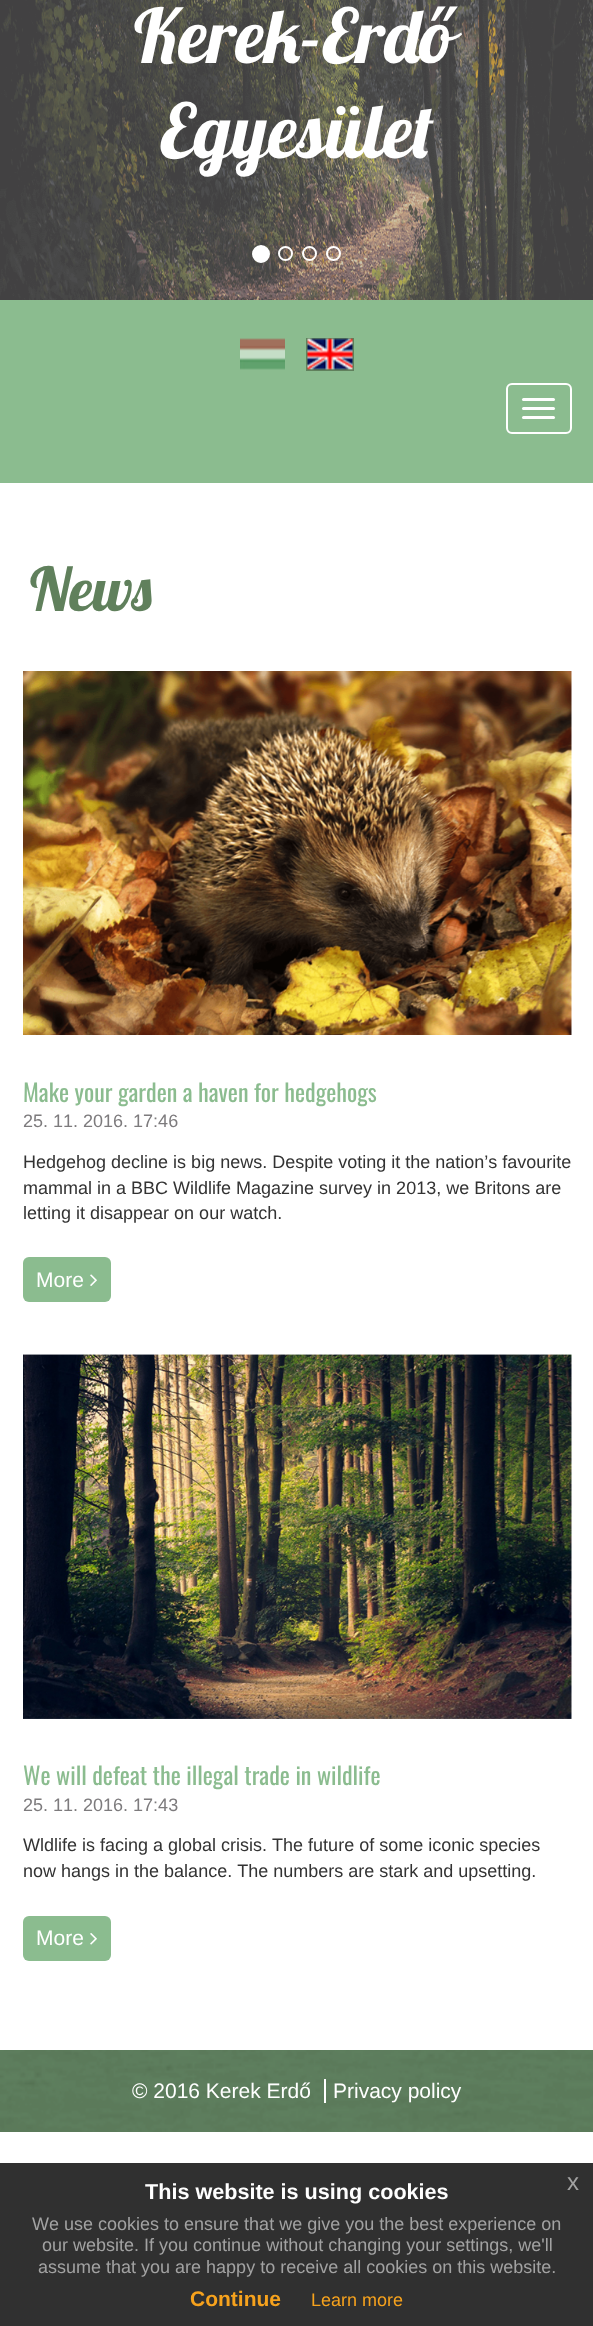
async function draw(canvas) {
  canvas.width = 593;
  canvas.height = 2326;
  const ctx = canvas.getContext('2d');
  ctx.miterLimit = 4;
  ctx.fontKerning = 'none';
  function label(s, x, y, font, color) {
    ctx.font = font;
    ctx.fillStyle = color;
    ctx.fillText(s, x, y);
  }
  function rect(x, y, w, h, color) {
    ctx.fillStyle = color;
    ctx.fillRect(x, y, w, h);
  }
  function roundedRect(x, y, w, h, r, color) {
    ctx.fillStyle = color;
    ctx.beginPath();
    ctx.roundRect(x, y, w, h, r);
    ctx.fill();
  }
  async function image(src, x, y, w, h) {
    const img = new Image();
    img.src = src;
    await img.decode();
    ctx.drawImage(img, x, y, w, h);
  }

  rect(0, 0, 593, 2326, '#fff');
  await image('assets/img1.png', 0, 0, 593, 300);
  label('Kerek-Erdő', 134, 63, '75px Lobster', '#fff');
  label('Egyesület', 160, 158, '75px Lobster', '#fff');
  ctx.beginPath();
  ctx.arc(261, 254, 8, 0, 2 * Math.PI);
  ctx.fill();
  ctx.strokeStyle = '#fff';
  ctx.lineWidth = 2;
  ctx.stroke();
  ctx.beginPath();
  ctx.arc(285.5, 253.5, 6.5, 0, 2 * Math.PI);
  ctx.stroke();
  ctx.beginPath();
  ctx.arc(309.5, 253.5, 6.5, 0, 2 * Math.PI);
  ctx.stroke();
  ctx.beginPath();
  ctx.arc(333.5, 253.5, 6.5, 0, 2 * Math.PI);
  ctx.stroke();
  rect(0, 300, 593, 183, '#8bbc8f');
  await image('assets/img2.png', 240, 338, 45, 32);
  ctx.strokeStyle = '#60805c';
  ctx.strokeRect(307, 339, 46, 31);
  await image('assets/img3.png', 307, 338, 46, 32);
  ctx.beginPath();
  ctx.roundRect(507, 384, 64, 49, 5);
  ctx.strokeStyle = '#fff';
  ctx.stroke();
  roundedRect(522, 398, 33, 3, 1.5, '#fff');
  roundedRect(522, 407, 33, 3, 1.5, '#fff');
  roundedRect(522, 416, 33, 3, 1.5, '#fff');
  label('News', 30, 611, '60px Lobster', '#60805c');
  await image('assets/img4.png', 23, 671, 549, 364);
  label('Make your garden a haven for hedgehogs', 23, 1102, '24px Oswald', '#8bbc8f');
  label('25. 11. 2016. 17:46', 23, 1127, '18px Liberation Sans', '#7d7b7d');
  label('Hedgehog decline is big news. Despite voting it the nation’s favourite', 23, 1168, '18px Liberation Sans', '#333');
  label('mammal in a BBC Wildlife Magazine survey in 2013, we Britons are', 23, 1194, '18px Liberation Sans', '#333');
  label('letting it disappear on our watch.', 23, 1219, '18px Liberation Sans', '#333');
  roundedRect(23, 1257, 88, 45, 6, '#8bbc8f');
  label('More', 36, 1287, '21px Liberation Sans', '#fff');
  await image('assets/img5.png', 90, 1274, 7, 12);
  await image('assets/img6.png', 23, 1354, 549, 365);
  label('We will defeat the illegal trade in wildlife', 23, 1785, '24px Oswald', '#8bbc8f');
  label('25. 11. 2016. 17:43', 23, 1811, '18px Liberation Sans', '#7d7b7d');
  label('Wldlife is facing a global crisis. The future of some iconic species', 23, 1851, '18px Liberation Sans', '#333');
  label('now hangs in the balance. The numbers are stark and upsetting.', 23, 1877, '18px Liberation Sans', '#333');
  roundedRect(23, 1916, 88, 45, 6, '#8bbc8f');
  label('More', 36, 1945, '21px Liberation Sans', '#fff');
  await image('assets/img7.png', 90, 1933, 7, 12);
  await image('assets/img8.png', 0, 2050, 593, 82);
  label('© 2016 Kerek Erdő', 132, 2098, '21px Liberation Sans', '#fff');
  rect(324, 2079, 2, 24, '#fff');
  label('Privacy policy', 333, 2098, '21px Liberation Sans', '#fff');
  rect(0, 2163, 593, 163, '#303030');
  label('This website is using cookies', 145, 2199, 'bold 21.6px Liberation Sans', '#fff');
  label('x', 567, 2190, '24px Liberation Sans', '#a2a2a2');
  label('We use cookies to ensure that we give you the best experience on', 32, 2230, '18px Liberation Sans', '#a2a2a2');
  label('our website. If you continue without changing your settings, we\'ll', 42, 2251, '18px Liberation Sans', '#a2a2a2');
  label('assume that you are happy to receive all cookies on this website.', 38, 2273, '18px Liberation Sans', '#a2a2a2');
  label('Continue', 190, 2306, 'bold 21px Liberation Sans', '#f6a21d');
  label('Learn more', 311, 2306, '18px Liberation Sans', '#f6a21d');
}

draw(document.querySelector('canvas'));
